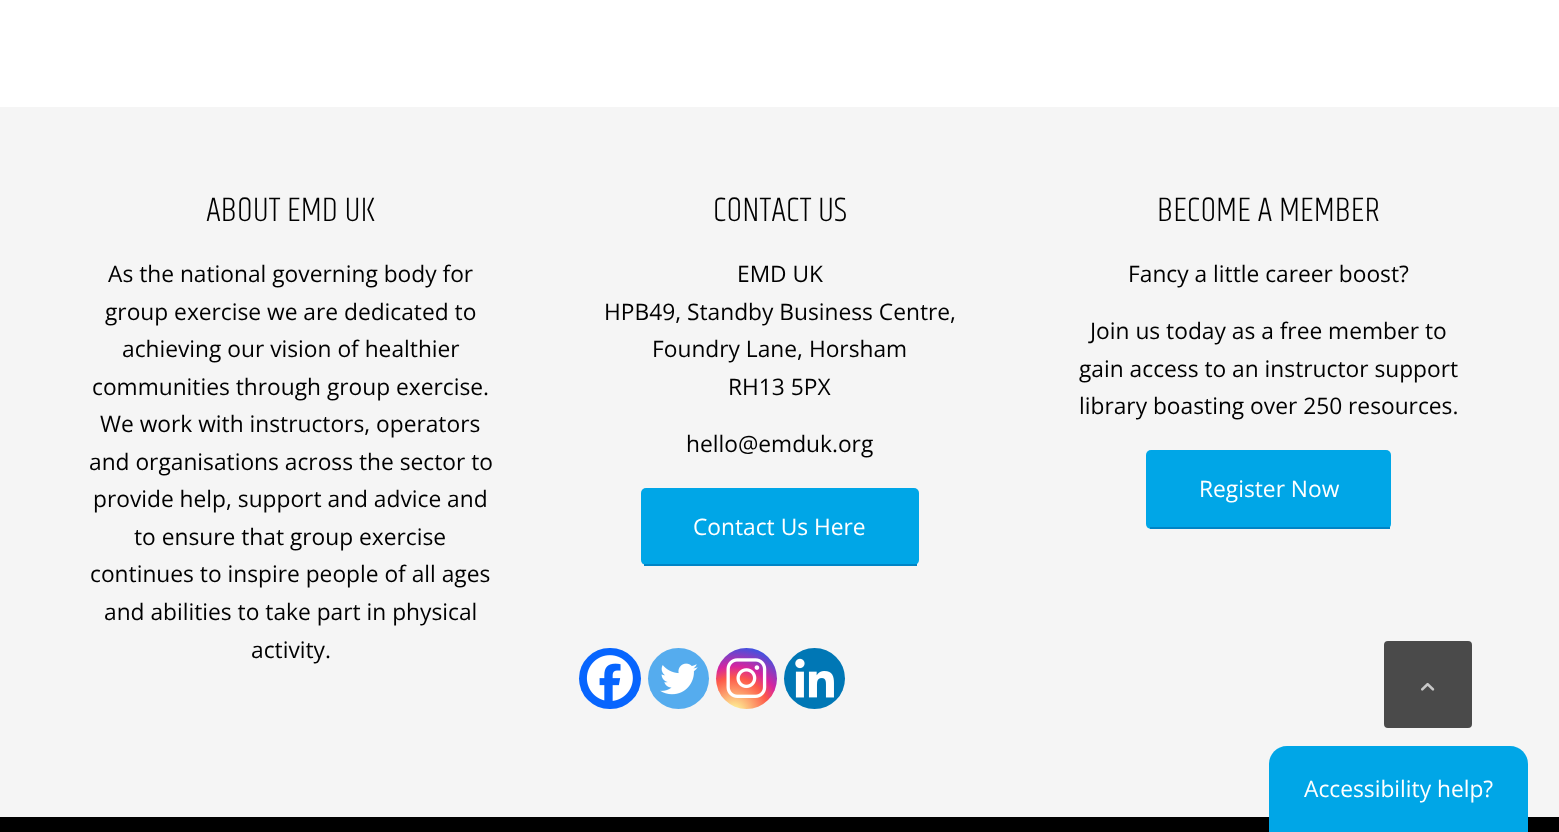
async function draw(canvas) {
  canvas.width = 1559;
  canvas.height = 832;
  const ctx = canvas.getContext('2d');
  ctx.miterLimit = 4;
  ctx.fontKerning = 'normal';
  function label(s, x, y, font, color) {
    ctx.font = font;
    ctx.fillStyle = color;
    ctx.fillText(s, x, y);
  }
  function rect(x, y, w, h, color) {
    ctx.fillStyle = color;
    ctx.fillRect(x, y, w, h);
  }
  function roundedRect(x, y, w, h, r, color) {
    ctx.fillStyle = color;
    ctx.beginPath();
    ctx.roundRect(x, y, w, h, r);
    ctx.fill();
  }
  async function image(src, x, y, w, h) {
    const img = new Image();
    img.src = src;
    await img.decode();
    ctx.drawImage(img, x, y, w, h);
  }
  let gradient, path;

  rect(0, 0, 1559, 832, '#fff');
  rect(0, 107, 1559, 710, '#f5f5f5');
  label('ABOUT EMD UK', 206, 221, '300 35px Khand', '#000');
  label('As the national governing body for', 108, 282, '22.75px Open Sans', '#000');
  label('group exercise we are dedicated to', 105, 320, '22.75px Open Sans', '#000');
  label('achieving our vision of healthier', 122, 357, '22.75px Open Sans', '#000');
  label('communities through group exercise.', 92, 395, '22.75px Open Sans', '#000');
  label('We work with instructors, operators', 100, 432, '22.75px Open Sans', '#000');
  label('and organisations across the sector to', 89, 470, '22.75px Open Sans', '#000');
  label('provide help, support and advice and', 93, 507, '22.75px Open Sans', '#000');
  label('to ensure that group exercise', 134, 545, '22.75px Open Sans', '#000');
  label('continues to inspire people of all ages', 90, 582, '22.75px Open Sans', '#000');
  label('and abilities to take part in physical', 104, 620, '22.75px Open Sans', '#000');
  label('activity.', 251, 658, '22.75px Open Sans', '#000');
  label('CONTACT US', 713, 221, '300 35px Khand', '#000');
  label('EMD UK', 737, 282, '22.75px Open Sans', '#000');
  label('HPB49, Standby Business Centre,', 604, 320, '22.75px Open Sans', '#000');
  label('Foundry Lane, Horsham', 652, 357, '22.75px Open Sans', '#000');
  label('RH13 5PX', 728, 395, '22.75px Open Sans', '#000');
  label('hello@emduk.org', 686, 452, '22.75px Open Sans', '#000');
  roundedRect(641, 488, 278, 77, 5, '#00a6e7');
  rect(644, 564, 273, 2, '#0084c5');
  label('Contact Us Here', 693, 535, '22.75px Open Sans', '#fff');
  roundedRect(579, 648, 62, 61, 30.5, '#0765fe');
  await image('assets/img1.png', 586, 655, 47, 46);
  ctx.fillStyle = '#55acee';
  ctx.beginPath();
  ctx.arc(678.5, 678.5, 30.5, 0, 2 * Math.PI);
  ctx.fill();
  await image('assets/img2.png', 660, 663, 38, 32);
  gradient = ctx.createRadialGradient(734, 713, 0, 734, 713, 78);
  gradient.addColorStop(0, '#fdf497');
  gradient.addColorStop(0.05, '#fdf497');
  gradient.addColorStop(0.45, '#fd5949');
  gradient.addColorStop(0.6, '#d6249f');
  gradient.addColorStop(0.9, '#285aeb');
  ctx.fillStyle = gradient;
  ctx.beginPath();
  ctx.arc(746.5, 678.5, 30.5, 0, 2 * Math.PI);
  ctx.fill();
  await image('assets/img3.png', 726, 658, 41, 40);
  ctx.fillStyle = '#0077b5';
  ctx.beginPath();
  ctx.arc(814.5, 678.5, 30.5, 0, 2 * Math.PI);
  ctx.fill();
  await image('assets/img4.png', 795, 658, 39, 40);
  label('BECOME A MEMBER', 1157, 221, '300 35px Khand', '#000');
  label('Fancy a little career boost?', 1128, 282, '22.75px Open Sans', '#000');
  label('Join us today as a free member to', 1090, 339, '22.75px Open Sans', '#000');
  label('gain access to an instructor support', 1079, 377, '22.75px Open Sans', '#000');
  label('library boasting over 250 resources.', 1079, 414, '22.75px Open Sans', '#000');
  roundedRect(1146, 450, 245, 79, 5, '#00a6e7');
  rect(1150, 527, 240, 2, '#0084c5');
  label('Register Now', 1199, 497, '22.75px Open Sans', '#fff');
  rect(0, 817, 1559, 15, '#000');
  ctx.fillStyle = '#00a6e7';
  path = new Path2D('M1287 746H1510C1520 746 1528 754 1528 764V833H1269V764C1269 754 1277 746 1287 746Z');
  ctx.fill(path);
  label('Accessibility help?', 1304, 797, '22.75px Open Sans', '#fff');
  ctx.fillStyle = '#4a4a4a';
  ctx.beginPath();
  ctx.roundRect(1385, 642, 86, 85, 3);
  ctx.fill();
  ctx.strokeStyle = '#4a4a4a';
  ctx.lineWidth = 2;
  ctx.stroke();
  await image('assets/img5.png', 1421, 682, 14, 9);
}

draw(document.querySelector('canvas'));
